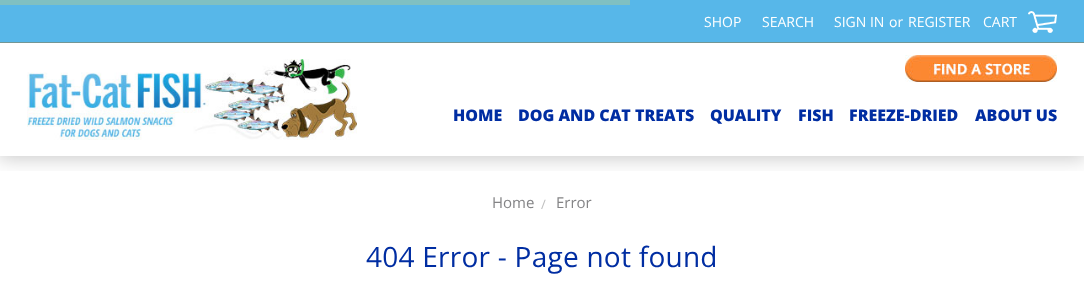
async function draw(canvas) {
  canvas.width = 1084;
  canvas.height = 308;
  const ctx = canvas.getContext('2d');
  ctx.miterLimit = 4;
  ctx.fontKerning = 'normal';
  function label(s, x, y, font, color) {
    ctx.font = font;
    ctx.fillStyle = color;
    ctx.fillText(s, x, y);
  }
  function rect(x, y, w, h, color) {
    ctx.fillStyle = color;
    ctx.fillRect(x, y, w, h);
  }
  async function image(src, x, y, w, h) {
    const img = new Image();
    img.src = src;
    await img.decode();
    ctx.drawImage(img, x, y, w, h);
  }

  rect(0, 0, 1084, 308, '#fff');
  ctx.save();
  ctx.beginPath();
  ctx.rect(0, 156, 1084, 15);
  ctx.clip();
  ctx.fillStyle = '#00000038';
  ctx.filter = 'blur(10px)';
  ctx.beginPath();
  ctx.rect(-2, -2, 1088, 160);
  ctx.fill();
  ctx.filter = 'none';
  ctx.restore();
  rect(0, 0, 1084, 42, '#57b7e9');
  rect(0, 0, 630, 5, '#7fc0c2');
  rect(0, 42, 1084, 1, '#739694');
  label('SHOP', 704, 27, '14px Open Sans', '#fff');
  label('SEARCH', 762, 27, '14px Open Sans', '#fff');
  label('SIGN IN', 834, 27, '14px Open Sans', '#fff');
  label('or', 889, 27, '14px Open Sans', '#fff');
  label('REGISTER', 908, 27, '14px Open Sans', '#fff');
  await image('assets/img1.png', 1028, 11, 29, 22);
  label('CART', 983, 27, '14px Open Sans', '#fff');
  await image('assets/img2.png', 27, 59, 330, 81);
  await image('assets/img3.png', 905, 55, 152, 27);
  label('HOME', 453, 121, '800 16px Open Sans', '#002da2');
  label('DOG AND CAT TREATS', 518, 121, '800 16px Open Sans', '#002da2');
  label('QUALITY', 710, 121, '800 16px Open Sans', '#002da2');
  label('FISH', 798, 121, '800 16px Open Sans', '#002da2');
  label('FREEZE-DRIED', 849, 121, '800 16px Open Sans', '#002da2');
  label('ABOUT US', 975, 121, '800 16px Open Sans', '#002da2');
  label('Home', 492, 208, '15px Open Sans', '#848486');
  label('/', 541, 209, '13px Open Sans', '#bfbfbf');
  label('Error', 556, 208, '15px Open Sans', '#848486');
  ctx.letterSpacing = '0.25px';
  label('404 Error - Page not found', 366, 267, '28px Open Sans', '#002da2');
}

draw(document.querySelector('canvas'));
